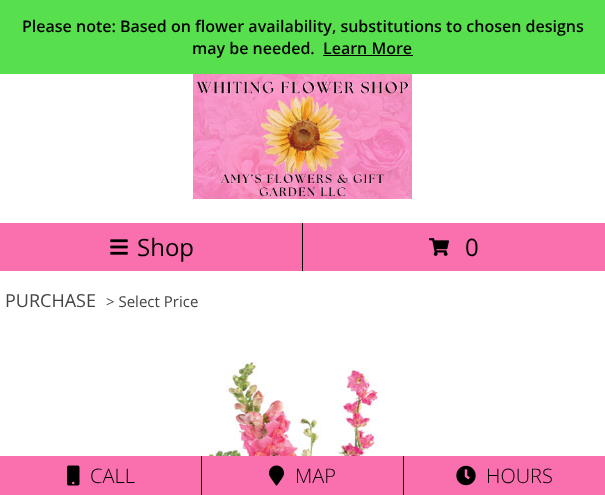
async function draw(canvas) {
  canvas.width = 605;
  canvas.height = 495;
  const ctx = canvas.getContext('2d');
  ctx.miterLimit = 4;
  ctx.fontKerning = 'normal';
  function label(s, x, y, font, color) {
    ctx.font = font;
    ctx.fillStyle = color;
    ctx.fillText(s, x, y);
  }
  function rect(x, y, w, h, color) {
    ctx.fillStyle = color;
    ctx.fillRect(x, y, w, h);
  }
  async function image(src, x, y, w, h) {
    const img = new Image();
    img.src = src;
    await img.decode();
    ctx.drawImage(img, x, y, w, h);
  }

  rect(0, 0, 605, 495, '#fff');
  rect(0, 0, 605, 74, '#57df4d');
  label('Please note: Based on flower availability, substitutions to chosen designs', 22, 32, '600 16px Open Sans', '#000');
  label('may be needed.', 192, 54, '600 16px Open Sans', '#000');
  label('Learn More', 323, 54, '600 16px Open Sans', '#000');
  rect(323, 55, 90, 1, '#000');
  await image('assets/img1.png', 193, 74, 219, 125);
  rect(302, 223, 1, 48, '#000');
  rect(0, 223, 302, 48, '#fa70af');
  await image('assets/img2.png', 110, 239, 18, 16);
  label('Shop', 137, 256, '24px Open Sans', '#000');
  rect(303, 223, 302, 48, '#fa70af');
  await image('assets/img3.png', 429, 238, 20, 18);
  label('0', 465, 256, '24px Open Sans', '#000');
  label('PURCHASE', 5, 307, '18px Open Sans', '#444');
  label('> Select Price', 106, 307, '15px Open Sans', '#444');
  await image('assets/img4.png', 194, 360, 204, 96);
  rect(0, 456, 201, 39, '#fa70af');
  await image('assets/img5.png', 67, 465, 13, 21);
  label('CALL', 90, 483, '300 20px Open Sans', '#000');
  rect(202, 456, 201, 39, '#fa70af');
  rect(201, 456, 1, 39, '#000');
  await image('assets/img6.png', 269, 465, 15, 21);
  label('MAP', 295, 483, '300 20px Open Sans', '#000');
  rect(404, 456, 201, 39, '#fa70af');
  rect(403, 456, 1, 39, '#000');
  await image('assets/img7.png', 456, 465, 20, 21);
  label('HOURS', 486, 483, '300 20px Open Sans', '#000');
}

draw(document.querySelector('canvas'));
